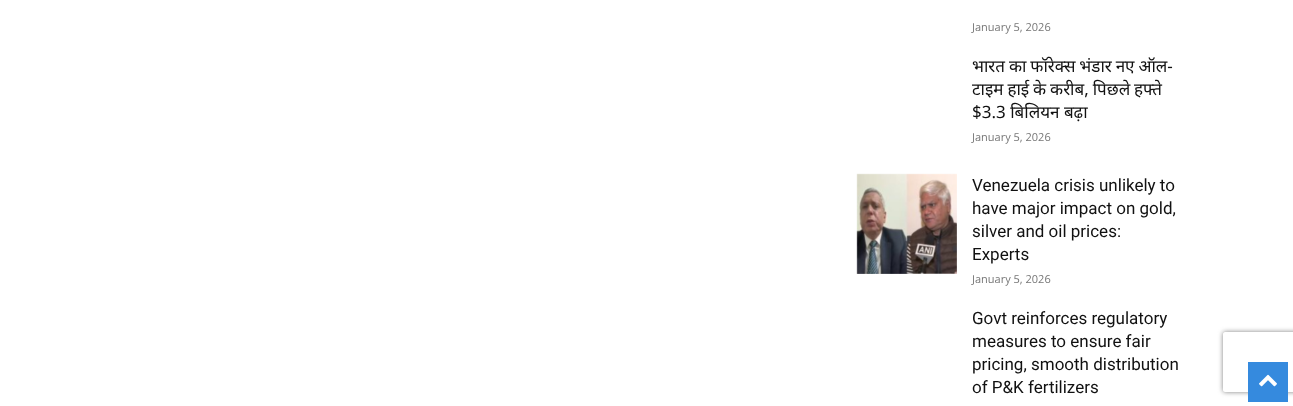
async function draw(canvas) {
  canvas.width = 1293;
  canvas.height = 406;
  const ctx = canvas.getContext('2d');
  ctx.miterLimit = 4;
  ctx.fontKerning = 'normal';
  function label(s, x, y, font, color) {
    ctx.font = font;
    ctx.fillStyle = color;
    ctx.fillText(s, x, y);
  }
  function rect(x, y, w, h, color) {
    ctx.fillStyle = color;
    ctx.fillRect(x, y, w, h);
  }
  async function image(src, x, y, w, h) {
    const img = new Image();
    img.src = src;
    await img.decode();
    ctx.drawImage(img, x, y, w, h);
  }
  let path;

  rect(0, 0, 1293, 406, '#fff');
  label('January 5, 2026', 972, 31, '11px Open Sans', '#767676');
  ctx.wordSpacing = '-0.5px';
  label('भारत का फॉरेक्स भंडार नए ऑल-', 972, 72, '17px Noto Sans', '#111');
  label('टाइम हाई के करीब, पिछले हफ्ते', 972, 95, '17px Noto Sans', '#111');
  ctx.wordSpacing = '0px';
  label('$3.3 बिलियन बढ़ा', 972, 118, '17px Noto Sans', '#111');
  label('January 5, 2026', 972, 141, '11px Open Sans', '#767676');
  await image('assets/img1.png', 856, 173, 101, 101);
  label('Venezuela crisis unlikely to', 972, 191, '17px Roboto', '#111');
  label('have major impact on gold,', 972, 214, '17px Roboto', '#111');
  label('silver and oil prices:', 972, 237, '17px Roboto', '#111');
  label('Experts', 972, 260, '17px Roboto', '#111');
  label('January 5, 2026', 972, 283, '11px Open Sans', '#767676');
  label('Govt reinforces regulatory', 972, 324, '17px Roboto', '#111');
  label('measures to ensure fair', 972, 347, '17px Roboto', '#111');
  label('pricing, smooth distribution', 972, 370, '17px Roboto', '#111');
  label('of P&K fertilizers', 972, 393, '17px Roboto', '#111');
  ctx.save();
  path = new Path2D('M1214 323H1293V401H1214ZM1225 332H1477C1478 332 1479 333 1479 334V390C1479 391 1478 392 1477 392H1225C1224 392 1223 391 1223 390V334C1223 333 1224 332 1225 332Z');
  ctx.clip(path, 'evenodd');
  ctx.fillStyle = '#808080';
  ctx.filter = 'blur(2.5px)';
  ctx.beginPath();
  ctx.roundRect(1223, 332, 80, 60, 2);
  ctx.fill();
  ctx.filter = 'none';
  ctx.restore();
  rect(1248, 362, 40, 40, '#358ade');
  await image('assets/img2.png', 1259, 374, 18, 13);
}

draw(document.querySelector('canvas'));
